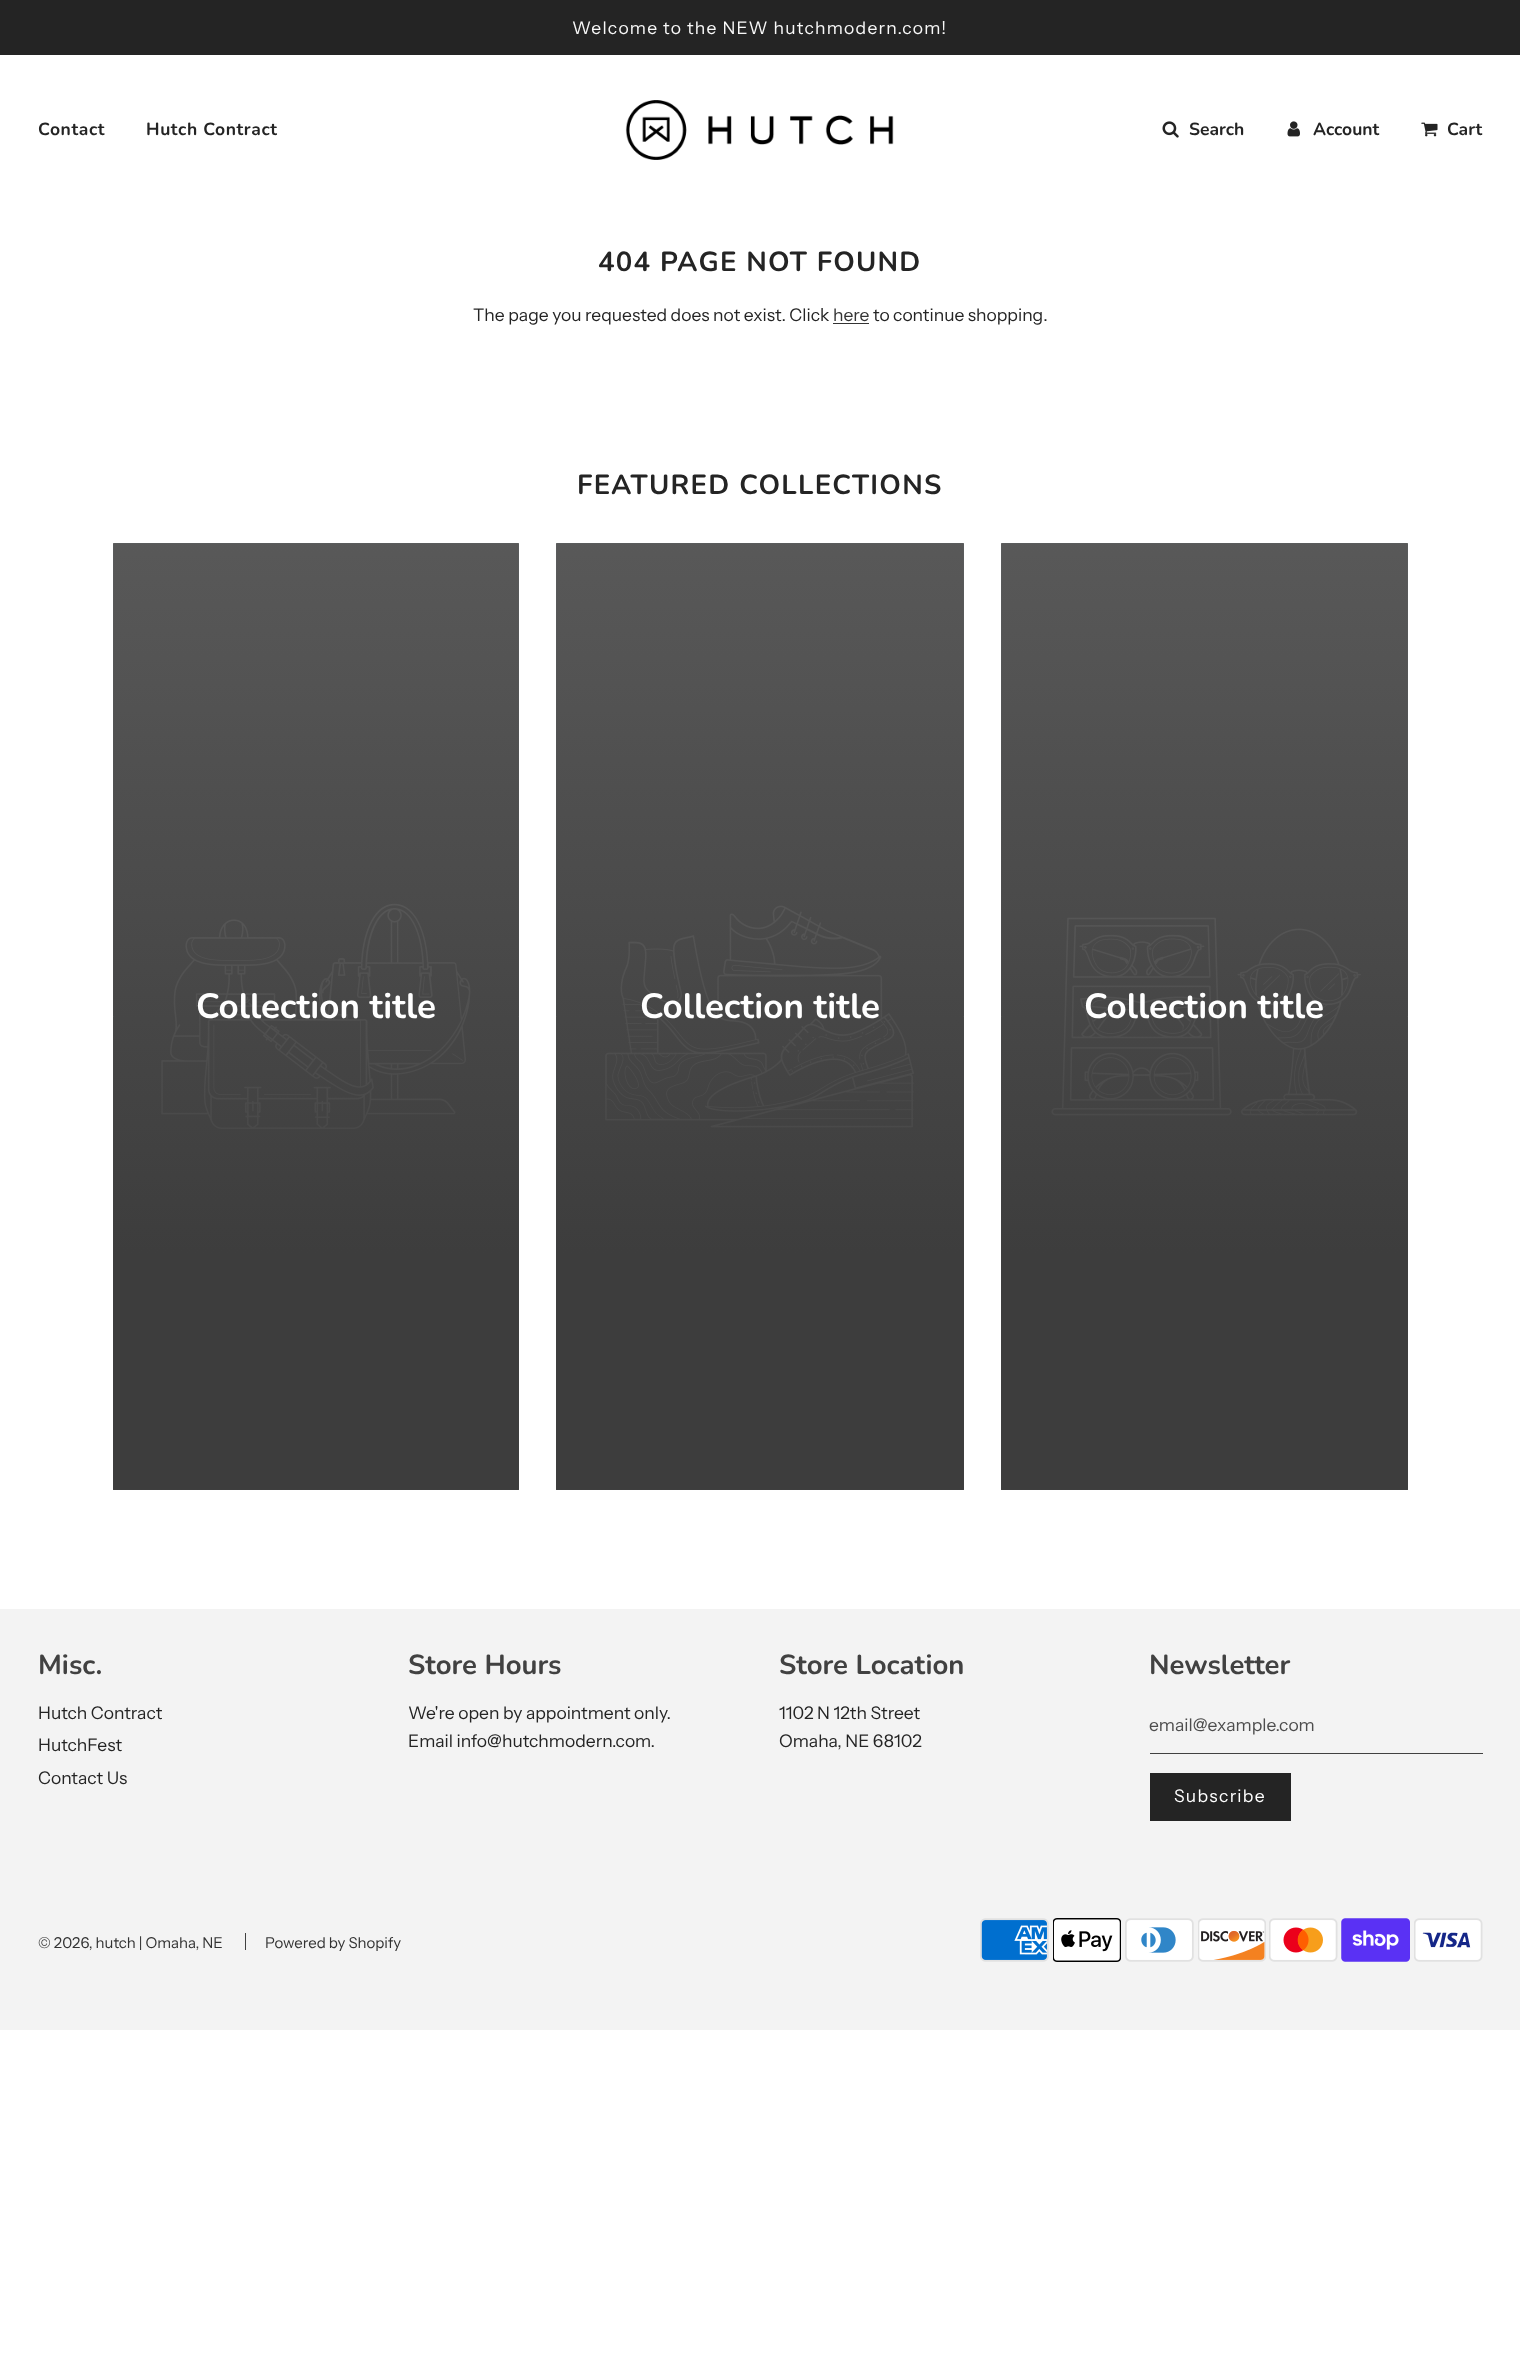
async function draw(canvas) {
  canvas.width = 1520;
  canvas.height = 2369;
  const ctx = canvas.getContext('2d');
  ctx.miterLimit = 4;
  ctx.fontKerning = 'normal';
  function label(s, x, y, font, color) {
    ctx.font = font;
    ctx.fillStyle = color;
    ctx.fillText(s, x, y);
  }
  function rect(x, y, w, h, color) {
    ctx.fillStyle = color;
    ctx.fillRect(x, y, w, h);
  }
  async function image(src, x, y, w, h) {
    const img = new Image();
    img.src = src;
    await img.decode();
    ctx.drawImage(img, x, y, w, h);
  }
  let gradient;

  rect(0, 0, 1520, 2369, '#fff');
  rect(0, 0, 1520, 55, '#242424');
  ctx.letterSpacing = '1.25px';
  label('Welcome to the NEW hutchmodern.com!', 572, 34, '17.5px Instrument Sans', '#f8f8f8');
  ctx.letterSpacing = '0.6px';
  label('Contact', 38, 135, 'bold 17.5px Nunito', '#242424');
  label('Hutch Contract', 146, 135, 'bold 17.5px Nunito', '#242424');
  await image('assets/img1.png', 625, 100, 269, 60);
  await image('assets/img2.png', 1162, 121, 17, 17);
  ctx.letterSpacing = '0px';
  label('Search', 1189, 135, 'bold 17.5px Nunito', '#242424');
  await image('assets/img3.png', 1287, 121, 13, 16);
  label('Account', 1313, 135, 'bold 17.5px Nunito', '#242424');
  await image('assets/img4.png', 1421, 122, 17, 15);
  label('Cart', 1447, 135, 'bold 17.5px Nunito', '#242424');
  ctx.letterSpacing = '1.25px';
  label('404 PAGE NOT FOUND', 598, 271, 'bold 27.5px Nunito', '#242424');
  ctx.letterSpacing = '0px';
  label('The page you requested does not exist. Click', 473, 321, '17.5px Instrument Sans', '#242424');
  label('here', 833, 321, '17.5px Instrument Sans', '#333');
  rect(833, 323, 36, 1, '#333');
  label('to continue shopping.', 873, 321, '17.5px Instrument Sans', '#242424');
  ctx.letterSpacing = '1.25px';
  label('FEATURED COLLECTIONS', 577, 494, 'bold 27.5px Nunito', '#242424');
  ctx.fillStyle = '#696969';
  ctx.beginPath();
  ctx.rect(113.5, 543.5, 405, 946);
  ctx.fill();
  ctx.strokeStyle = '#6c6e6f';
  ctx.stroke();
  await image('assets/img5.png', 161, 903, 310, 226);
  gradient = ctx.createLinearGradient(316, 543, 316, 1490);
  gradient.addColorStop(0, '#3232324d');
  gradient.addColorStop(0.75, '#323232cc');
  ctx.fillStyle = gradient;
  ctx.fillRect(113, 543, 406, 947);
  ctx.letterSpacing = '0px';
  label('Collection title', 196, 1018, 'bold 35px Nunito', '#fff');
  ctx.fillStyle = '#696969';
  ctx.beginPath();
  ctx.rect(556.5, 543.5, 407, 946);
  ctx.fill();
  ctx.stroke();
  await image('assets/img6.png', 605, 905, 309, 223);
  gradient = ctx.createLinearGradient(760, 543, 760, 1490);
  gradient.addColorStop(0, '#3232324d');
  gradient.addColorStop(0.75, '#323232cc');
  ctx.fillStyle = gradient;
  ctx.fillRect(556, 543, 408, 947);
  label('Collection title', 640, 1018, 'bold 35px Nunito', '#fff');
  ctx.fillStyle = '#696969';
  ctx.beginPath();
  ctx.rect(1001.5, 543.5, 406, 946);
  ctx.fill();
  ctx.stroke();
  await image('assets/img7.png', 1051, 917, 310, 199);
  gradient = ctx.createLinearGradient(1204, 543, 1204, 1490);
  gradient.addColorStop(0, '#3232324d');
  gradient.addColorStop(0.75, '#323232cc');
  ctx.fillStyle = gradient;
  ctx.fillRect(1001, 543, 407, 947);
  label('Collection title', 1084, 1018, 'bold 35px Nunito', '#fff');
  rect(0, 1609, 1520, 421, '#f3f3f3');
  label('Misc.', 38, 1674, 'bold 27.5px Nunito', '#414141');
  label('Hutch Contract', 38, 1719, '17.5px Instrument Sans', '#242424');
  label('HutchFest', 38, 1751, '17.5px Instrument Sans', '#242424');
  label('Contact Us', 38, 1784, '17.5px Instrument Sans', '#242424');
  label('Store Hours', 408, 1674, 'bold 27.5px Nunito', '#414141');
  label('We\'re open by appointment only.', 408, 1719, '17.5px Instrument Sans', '#242424');
  label('Email info@hutchmodern.com.', 408, 1747, '17.5px Instrument Sans', '#242424');
  label('Store Location', 779, 1674, 'bold 27.5px Nunito', '#414141');
  label('1102 N 12th Street', 779, 1719, '17.5px Instrument Sans', '#242424');
  label('Omaha, NE 68102', 779, 1747, '17.5px Instrument Sans', '#242424');
  label('Newsletter', 1149, 1674, 'bold 27.5px Nunito', '#414141');
  rect(1150, 1753, 333, 1, '#414141');
  label('email@example.com', 1149, 1731, '17.5px Instrument Sans', '#4d4d4d');
  rect(1150, 1773, 141, 48, '#242424');
  ctx.letterSpacing = '1.25px';
  label('Subscribe', 1174, 1802, '17.5px Instrument Sans', '#fff');
  ctx.letterSpacing = '0px';
  label('© 2026, hutch | Omaha, NE', 38, 1948, '15px Instrument Sans', '#333');
  rect(245, 1933, 1, 17, '#414141');
  label('Powered by Shopify', 265, 1948, '15px Instrument Sans', '#333');
  await image('assets/img8.png', 980, 1918, 69, 44);
  await image('assets/img9.png', 1053, 1918, 68, 44);
  await image('assets/img10.png', 1125, 1918, 69, 44);
  await image('assets/img11.png', 1198, 1918, 68, 44);
  await image('assets/img12.png', 1269, 1918, 69, 44);
  await image('assets/img13.png', 1341, 1918, 69, 44);
  await image('assets/img14.png', 1414, 1918, 69, 44);
}

draw(document.querySelector('canvas'));
